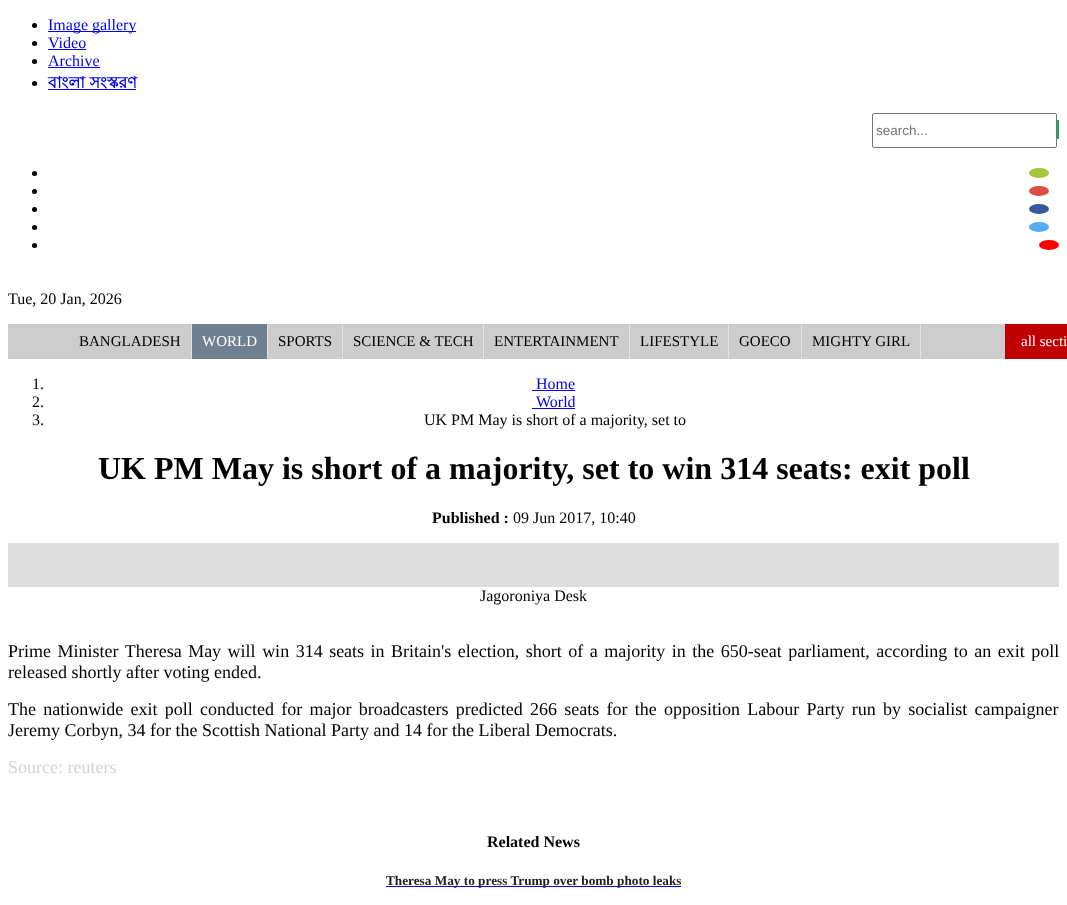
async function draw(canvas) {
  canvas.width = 1067;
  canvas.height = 905;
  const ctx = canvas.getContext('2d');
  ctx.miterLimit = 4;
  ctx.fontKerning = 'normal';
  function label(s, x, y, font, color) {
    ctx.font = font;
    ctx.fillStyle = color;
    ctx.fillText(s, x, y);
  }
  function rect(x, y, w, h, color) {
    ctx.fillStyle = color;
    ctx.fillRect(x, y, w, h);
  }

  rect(0, 0, 1067, 905, '#fff');
  ctx.fillStyle = '#000';
  ctx.beginPath();
  ctx.arc(34.5, 25.5, 2.5, 0, 2 * Math.PI);
  ctx.fill();
  rect(48, 31, 88, 1, '#00e');
  label('Image gallery', 48, 30, '16px Liberation Serif', '#00e');
  ctx.fillStyle = '#000';
  ctx.beginPath();
  ctx.arc(34.5, 43.5, 2.5, 0, 2 * Math.PI);
  ctx.fill();
  label('Video', 48, 48, '16px Liberation Serif', '#00e');
  rect(48, 49, 38, 1, '#00e');
  ctx.fillStyle = '#000';
  ctx.beginPath();
  ctx.arc(34.5, 61.5, 2.5, 0, 2 * Math.PI);
  ctx.fill();
  label('Archive', 48, 66, '16px Liberation Serif', '#00e');
  rect(48, 67, 52, 1, '#00e');
  ctx.fillStyle = '#000';
  ctx.beginPath();
  ctx.arc(34.5, 83.5, 2.5, 0, 2 * Math.PI);
  ctx.fill();
  label('বাংলা সংস্করণ', 48, 88, 'bold 16px Lohit Bengali', '#00e');
  rect(48, 89, 88, 1, '#00e');
  ctx.beginPath();
  ctx.roundRect(872.5, 113.5, 184, 34, 1.5);
  ctx.strokeStyle = '#767676';
  ctx.stroke();
  label('search...', 876, 135, '13.5px Liberation Sans', '#757575');
  rect(1057, 120, 2, 19, '#11ac5c');
  ctx.fillStyle = '#000';
  ctx.beginPath();
  ctx.arc(34.5, 173.5, 2.5, 0, 2 * Math.PI);
  ctx.fill();
  ctx.fillStyle = '#a4c639';
  ctx.beginPath();
  ctx.ellipse(1039, 173, 10, 5, 0, 0, 2 * Math.PI);
  ctx.fill();
  ctx.fillStyle = '#000';
  ctx.beginPath();
  ctx.arc(34.5, 191.5, 2.5, 0, 2 * Math.PI);
  ctx.fill();
  ctx.fillStyle = '#dc4e41';
  ctx.beginPath();
  ctx.ellipse(1039, 191, 10, 5, 0, 0, 2 * Math.PI);
  ctx.fill();
  ctx.fillStyle = '#000';
  ctx.beginPath();
  ctx.arc(34.5, 209.5, 2.5, 0, 2 * Math.PI);
  ctx.fill();
  ctx.fillStyle = '#3b5998';
  ctx.beginPath();
  ctx.ellipse(1039, 209, 10, 5, 0, 0, 2 * Math.PI);
  ctx.fill();
  ctx.fillStyle = '#000';
  ctx.beginPath();
  ctx.arc(34.5, 227.5, 2.5, 0, 2 * Math.PI);
  ctx.fill();
  ctx.fillStyle = '#55acee';
  ctx.beginPath();
  ctx.ellipse(1039, 227, 10, 5, 0, 0, 2 * Math.PI);
  ctx.fill();
  ctx.fillStyle = '#000';
  ctx.beginPath();
  ctx.arc(34.5, 245.5, 2.5, 0, 2 * Math.PI);
  ctx.fill();
  ctx.fillStyle = '#f00';
  ctx.beginPath();
  ctx.ellipse(1049, 245, 10, 5, 0, 0, 2 * Math.PI);
  ctx.fill();
  label('Tue, 20 Jan, 2026', 8, 304, '16px Liberation Serif', '#000');
  rect(8, 324, 997, 35, '#ccc');
  rect(191, 324, 1, 35, '#e4e4e4');
  label('BANGLADESH', 79, 346, '15px Liberation Serif', '#000');
  rect(267, 324, 1, 35, '#e4e4e4');
  rect(192, 324, 75, 35, '#708090');
  label('WORLD', 202, 346, '15px Liberation Serif', '#fff');
  rect(342, 324, 1, 35, '#e4e4e4');
  label('SPORTS', 278, 346, '15px Liberation Serif', '#000');
  rect(483, 324, 1, 35, '#e4e4e4');
  label('SCIENCE & TECH', 353, 346, '15px Liberation Serif', '#000');
  rect(629, 324, 1, 35, '#e4e4e4');
  label('ENTERTAINMENT', 494, 346, '15px Liberation Serif', '#000');
  rect(728, 324, 1, 35, '#e4e4e4');
  label('LIFESTYLE', 640, 346, '15px Liberation Serif', '#000');
  rect(801, 324, 1, 35, '#e4e4e4');
  label('GOECO', 739, 346, '15px Liberation Serif', '#000');
  rect(920, 324, 1, 35, '#e4e4e4');
  label('MIGHTY GIRL', 812, 346, '15px Liberation Serif', '#000');
  rect(1005, 324, 62, 35, '#c00000');
  label('all secti', 1021, 346, '15px Liberation Serif', '#fff');
  label('1.', 32, 389, '16px Liberation Serif', '#000');
  label('Home', 536, 389, '16px Liberation Serif', '#00e');
  rect(532, 390, 43, 1, '#00e');
  label('2.', 32, 407, '16px Liberation Serif', '#000');
  label('World', 536, 407, '16px Liberation Serif', '#00e');
  rect(532, 408, 43, 1, '#00e');
  label('3.', 32, 425, '16px Liberation Serif', '#000');
  label('UK PM May is short of a majority, set to', 424, 425, '16px Liberation Serif', '#000');
  label('UK PM May is short of a majority, set to win 314 seats: exit poll', 98, 479, 'bold 32px Liberation Serif', '#000');
  label('Published :', 432, 523, 'bold 16px Liberation Serif', '#000');
  label('09 Jun 2017, 10:40', 513, 523, '16px Liberation Serif', '#000');
  rect(8, 543, 1051, 44, '#ddd');
  label('Jagoroniya Desk', 480, 601, '16px Liberation Serif', '#000');
  ctx.wordSpacing = '2px';
  label('Prime Minister Theresa May will win 314 seats in Britain\'s election, short of a majority in the 650-seat parliament, according to an exit poll', 8, 657, '18px Liberation Serif', '#000');
  ctx.wordSpacing = '0px';
  label('released shortly after voting ended.', 8, 678, '18px Liberation Serif', '#000');
  ctx.wordSpacing = '2.75px';
  label('The nationwide exit poll conducted for major broadcasters predicted 266 seats for the opposition Labour Party run by socialist campaigner', 8, 715, '18px Liberation Serif', '#000');
  ctx.wordSpacing = '0px';
  label('Jeremy Corbyn, 34 for the Scottish National Party and 14 for the Liberal Democrats.', 8, 736, '18px Liberation Serif', '#000');
  label('Source: reuters', 8, 773, '18px Liberation Serif', '#d3d3d3');
  label('Related News', 487, 847, 'bold 16px Liberation Serif', '#000');
  rect(386, 886, 295, 1, '#00e');
  label('Theresa May to press Trump over bomb photo leaks', 386, 885, 'bold 13.25px Liberation Serif', '#212121');
}

draw(document.querySelector('canvas'));
